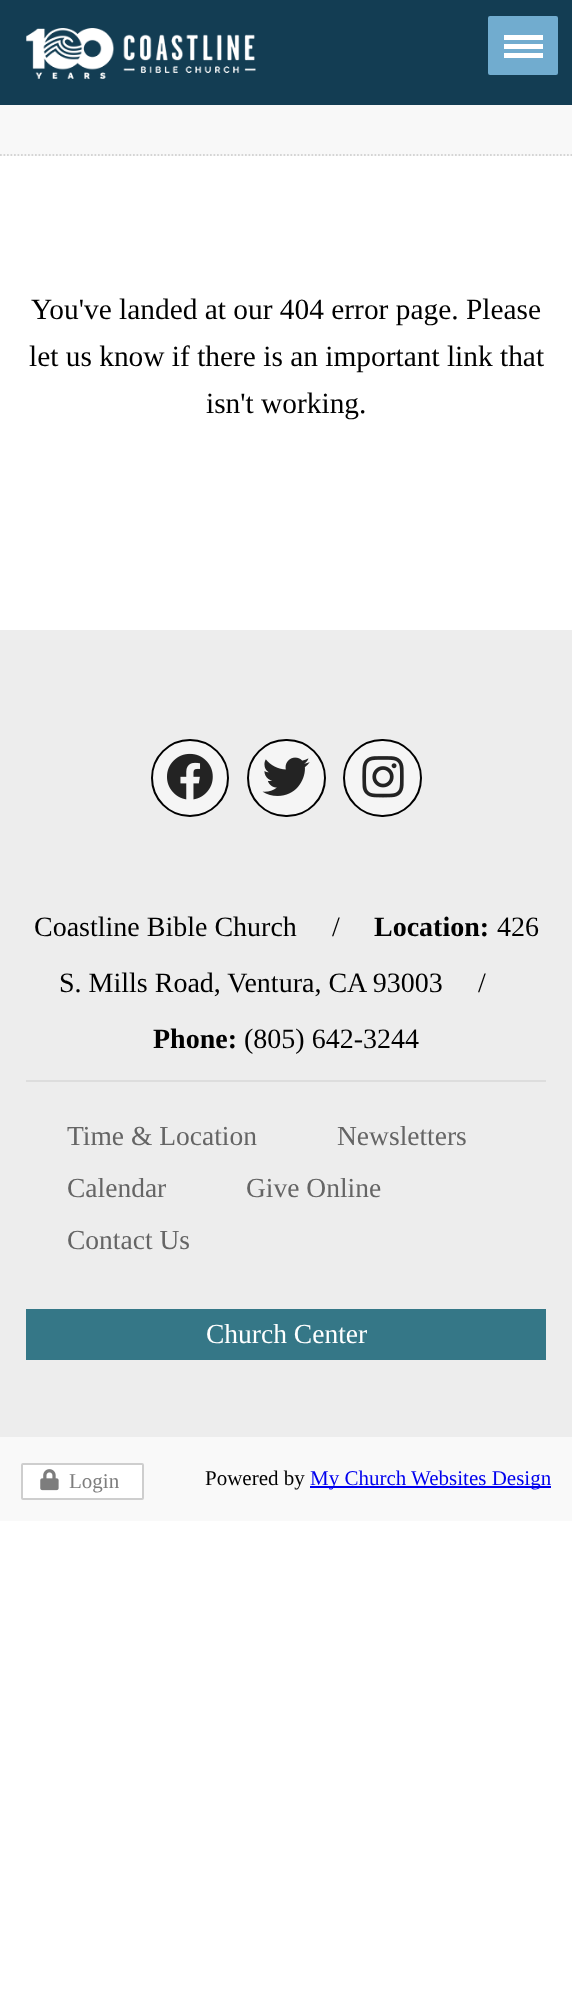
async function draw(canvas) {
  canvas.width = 572;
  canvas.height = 2003;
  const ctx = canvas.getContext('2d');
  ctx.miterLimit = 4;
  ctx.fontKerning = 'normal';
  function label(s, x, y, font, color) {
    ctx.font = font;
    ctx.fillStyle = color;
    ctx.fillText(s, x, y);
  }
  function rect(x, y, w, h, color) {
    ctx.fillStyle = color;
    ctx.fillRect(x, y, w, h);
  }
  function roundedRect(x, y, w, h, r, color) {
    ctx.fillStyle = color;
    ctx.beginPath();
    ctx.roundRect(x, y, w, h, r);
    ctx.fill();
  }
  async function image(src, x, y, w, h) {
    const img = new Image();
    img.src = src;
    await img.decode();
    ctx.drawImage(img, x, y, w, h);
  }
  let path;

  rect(0, 0, 572, 2003, '#fff');
  rect(0, 0, 572, 105, '#133d53');
  await image('assets/img1.png', 26, 28, 230, 51);
  roundedRect(488, 16, 70, 59, 2, '#71accf');
  rect(504, 44, 39, 5, '#fff');
  rect(504, 35, 39, 5, '#fff');
  rect(504, 53, 39, 5, '#fff');
  rect(0, 105, 572, 51, '#f8f8f8');
  path = new Path2D('M0 155H572');
  ctx.strokeStyle = '#d5d5d5';
  ctx.lineWidth = 1.8;
  ctx.setLineDash([1.75, 1.75]);
  ctx.stroke(path);
  label('You\'ve landed at our 404 error page. Please', 31, 319, '29.4px Liberation Serif', '#000');
  label('let us know if there is an important link that', 29, 366, '29.4px Liberation Serif', '#000');
  label('isn\'t working.', 206, 413, '29.4px Liberation Serif', '#000');
  rect(0, 630, 572, 807, '#ededed');
  ctx.fillStyle = '#f5f5f5';
  ctx.beginPath();
  ctx.arc(190, 778, 38, 0, 2 * Math.PI);
  ctx.fill();
  ctx.strokeStyle = '#000';
  ctx.lineWidth = 2;
  ctx.setLineDash([]);
  ctx.stroke();
  await image('assets/img2.png', 167, 753, 46, 47);
  ctx.beginPath();
  ctx.roundRect(248, 740, 77, 76, 38);
  ctx.fill();
  ctx.stroke();
  await image('assets/img3.png', 262, 757, 48, 39);
  ctx.beginPath();
  ctx.roundRect(344, 740, 77, 76, 38);
  ctx.fill();
  ctx.stroke();
  await image('assets/img4.png', 362, 756, 42, 42);
  rect(26, 1080, 520, 2, '#ddd');
  label('Coastline Bible Church', 34, 936, '28px Liberation Serif', '#000');
  label('/', 332, 936, '28px Liberation Serif', '#000');
  label('Location:', 374, 936, 'bold 28px Liberation Serif', '#000');
  label('426', 497, 936, '28px Liberation Serif', '#000');
  label('S. Mills Road, Ventura, CA 93003', 59, 992, '28px Liberation Serif', '#000');
  label('/', 478, 992, '28px Liberation Serif', '#000');
  label('Phone:', 153, 1048, 'bold 28px Liberation Serif', '#000');
  label('(805) 642-3244', 244, 1048, '28px Liberation Serif', '#000');
  label('Time & Location', 67, 1145, '27.5px Liberation Serif', '#656565');
  label('Newsletters', 337, 1145, '27.5px Liberation Serif', '#656565');
  label('Calendar', 67, 1197, '27.5px Liberation Serif', '#656565');
  label('Give Online', 246, 1197, '27.5px Liberation Serif', '#656565');
  label('Contact Us', 67, 1249, '27.5px Liberation Serif', '#656565');
  rect(26, 1309, 520, 51, '#357787');
  label('Church Center', 206, 1343, '27.5px Liberation Serif', '#fff');
  rect(0, 1437, 572, 84, '#f9f9f9');
  ctx.fillStyle = '#fff';
  ctx.beginPath();
  ctx.roundRect(22, 1464, 121, 35, 1);
  ctx.fill();
  ctx.strokeStyle = '#cecece';
  ctx.stroke();
  await image('assets/img5.png', 40, 1469, 19, 22);
  label('Login', 69, 1488, '21px Liberation Serif', '#7d7d7d');
  label('Powered by', 205, 1485, '21px Liberation Serif', '#000');
  rect(310, 1486, 241, 2, '#00e');
  label('My Church Websites Design', 310, 1485, '21px Liberation Serif', '#00e');
}

draw(document.querySelector('canvas'));
